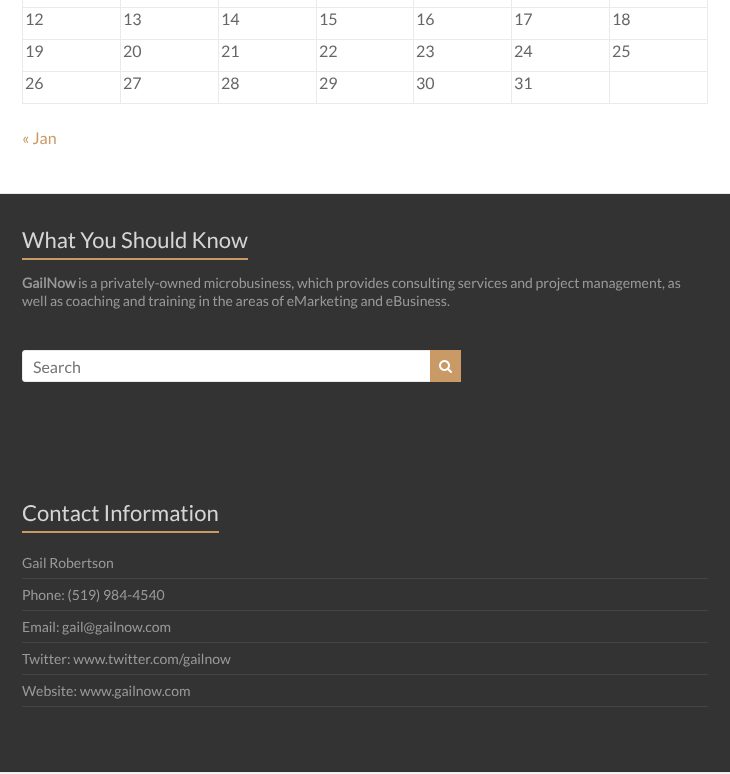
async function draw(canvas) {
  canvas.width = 730;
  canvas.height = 774;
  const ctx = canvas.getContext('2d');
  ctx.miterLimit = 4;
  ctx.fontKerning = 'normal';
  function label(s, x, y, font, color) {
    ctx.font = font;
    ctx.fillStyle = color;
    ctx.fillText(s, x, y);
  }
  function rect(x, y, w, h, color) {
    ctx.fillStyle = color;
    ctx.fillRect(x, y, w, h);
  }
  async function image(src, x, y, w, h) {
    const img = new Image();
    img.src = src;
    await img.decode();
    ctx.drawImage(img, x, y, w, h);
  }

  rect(0, 0, 730, 774, '#fff');
  rect(609, 7, 99, 1, '#eaeaea');
  rect(609, 39, 99, 1, '#eaeaea');
  rect(609, 71, 99, 1, '#eaeaea');
  rect(707, 71, 1, 33, '#eaeaea');
  rect(609, 103, 99, 1, '#eaeaea');
  rect(609, 71, 1, 33, '#eaeaea');
  rect(511, 71, 99, 1, '#eaeaea');
  rect(609, 39, 1, 33, '#eaeaea');
  rect(511, 39, 99, 1, '#eaeaea');
  rect(609, 7, 1, 33, '#eaeaea');
  rect(511, 7, 99, 1, '#eaeaea');
  rect(511, 103, 99, 1, '#eaeaea');
  rect(511, 71, 1, 33, '#eaeaea');
  rect(413, 71, 99, 1, '#eaeaea');
  rect(511, 39, 1, 33, '#eaeaea');
  rect(413, 39, 99, 1, '#eaeaea');
  rect(511, 7, 1, 33, '#eaeaea');
  rect(413, 7, 99, 1, '#eaeaea');
  rect(413, 103, 99, 1, '#eaeaea');
  rect(413, 71, 1, 33, '#eaeaea');
  rect(316, 71, 98, 1, '#eaeaea');
  rect(413, 39, 1, 33, '#eaeaea');
  rect(316, 39, 98, 1, '#eaeaea');
  rect(413, 7, 1, 33, '#eaeaea');
  rect(316, 7, 98, 1, '#eaeaea');
  rect(316, 103, 98, 1, '#eaeaea');
  rect(316, 71, 1, 33, '#eaeaea');
  rect(218, 71, 99, 1, '#eaeaea');
  rect(316, 39, 1, 33, '#eaeaea');
  rect(218, 39, 99, 1, '#eaeaea');
  rect(316, 7, 1, 33, '#eaeaea');
  rect(218, 7, 99, 1, '#eaeaea');
  rect(218, 103, 99, 1, '#eaeaea');
  rect(218, 71, 1, 33, '#eaeaea');
  rect(120, 71, 99, 1, '#eaeaea');
  rect(218, 39, 1, 33, '#eaeaea');
  rect(120, 39, 99, 1, '#eaeaea');
  rect(218, 7, 1, 33, '#eaeaea');
  rect(120, 7, 99, 1, '#eaeaea');
  rect(120, 103, 99, 1, '#eaeaea');
  rect(120, 71, 1, 33, '#eaeaea');
  rect(22, 71, 99, 1, '#eaeaea');
  rect(120, 39, 1, 33, '#eaeaea');
  rect(22, 39, 99, 1, '#eaeaea');
  rect(120, 7, 1, 33, '#eaeaea');
  rect(22, 7, 99, 1, '#eaeaea');
  rect(120, 0, 1, 8, '#eaeaea');
  rect(218, 0, 1, 8, '#eaeaea');
  rect(316, 0, 1, 8, '#eaeaea');
  rect(413, 0, 1, 8, '#eaeaea');
  rect(511, 0, 1, 8, '#eaeaea');
  rect(609, 0, 1, 8, '#eaeaea');
  rect(22, 103, 99, 1, '#eaeaea');
  rect(22, 71, 1, 33, '#eaeaea');
  rect(22, 39, 1, 33, '#eaeaea');
  rect(22, 0, 1, 40, '#eaeaea');
  label('12', 25, 25, '16px Lato', '#666');
  label('13', 123, 25, '16px Lato', '#666');
  label('14', 221, 25, '16px Lato', '#666');
  label('15', 319, 25, '16px Lato', '#666');
  label('16', 416, 25, '16px Lato', '#666');
  label('17', 514, 25, '16px Lato', '#666');
  rect(707, 39, 1, 33, '#eaeaea');
  rect(707, 0, 1, 40, '#eaeaea');
  label('18', 612, 25, '16px Lato', '#666');
  label('19', 25, 57, '16px Lato', '#666');
  label('20', 123, 57, '16px Lato', '#666');
  label('21', 221, 57, '16px Lato', '#666');
  label('22', 319, 57, '16px Lato', '#666');
  label('23', 416, 57, '16px Lato', '#666');
  label('24', 514, 57, '16px Lato', '#666');
  label('25', 612, 57, '16px Lato', '#666');
  label('26', 25, 89, '16px Lato', '#666');
  label('27', 123, 89, '16px Lato', '#666');
  label('28', 221, 89, '16px Lato', '#666');
  label('29', 319, 89, '16px Lato', '#666');
  label('30', 416, 89, '16px Lato', '#666');
  label('31', 514, 89, '16px Lato', '#666');
  label('« Jan', 22, 144, '16px Lato', '#c99966');
  rect(0, 194, 730, 578, '#333');
  rect(0, 193, 730, 1, '#eaeaea');
  label('What You Should Know', 22, 248, '22px Lato', '#d5d5d5');
  rect(22, 258, 226, 2, '#c99966');
  label('GailNow', 22, 288, 'bold 14px Lato', '#999');
  label('is a privately-owned microbusiness, which provides consulting services and project management, as', 78, 288, '14px Lato', '#999');
  label('well as coaching and training in the areas of eMarketing and eBusiness.', 22, 306, '14px Lato', '#999');
  ctx.fillStyle = '#fff';
  ctx.beginPath();
  ctx.roundRect(22.5, 350.5, 411, 31, 2.5);
  ctx.fill();
  ctx.strokeStyle = '#eaeaea';
  ctx.stroke();
  label('Search', 33, 373, '16px Lato', '#757575');
  rect(430, 350, 31, 32, '#c99966');
  await image('assets/img1.png', 439, 360, 13, 13);
  label('Contact Information', 22, 521, '22px Lato', '#d5d5d5');
  rect(22, 531, 197, 2, '#c99966');
  rect(22, 578, 686, 1, '#444');
  label('Gail Robertson', 22, 568, '14px Lato', '#999');
  rect(22, 610, 686, 1, '#444');
  label('Phone: (519) 984-4540', 22, 600, '14px Lato', '#999');
  rect(22, 642, 686, 1, '#444');
  label('Email: gail@gailnow.com', 22, 632, '14px Lato', '#999');
  rect(22, 674, 686, 1, '#444');
  label('Twitter: www.twitter.com/gailnow', 22, 664, '14px Lato', '#999');
  rect(22, 706, 686, 1, '#444');
  label('Website: www.gailnow.com', 22, 696, '14px Lato', '#999');
  rect(0, 773, 730, 1, '#f8f8f8');
  rect(0, 772, 730, 1, '#eaeaea');
}

draw(document.querySelector('canvas'));
